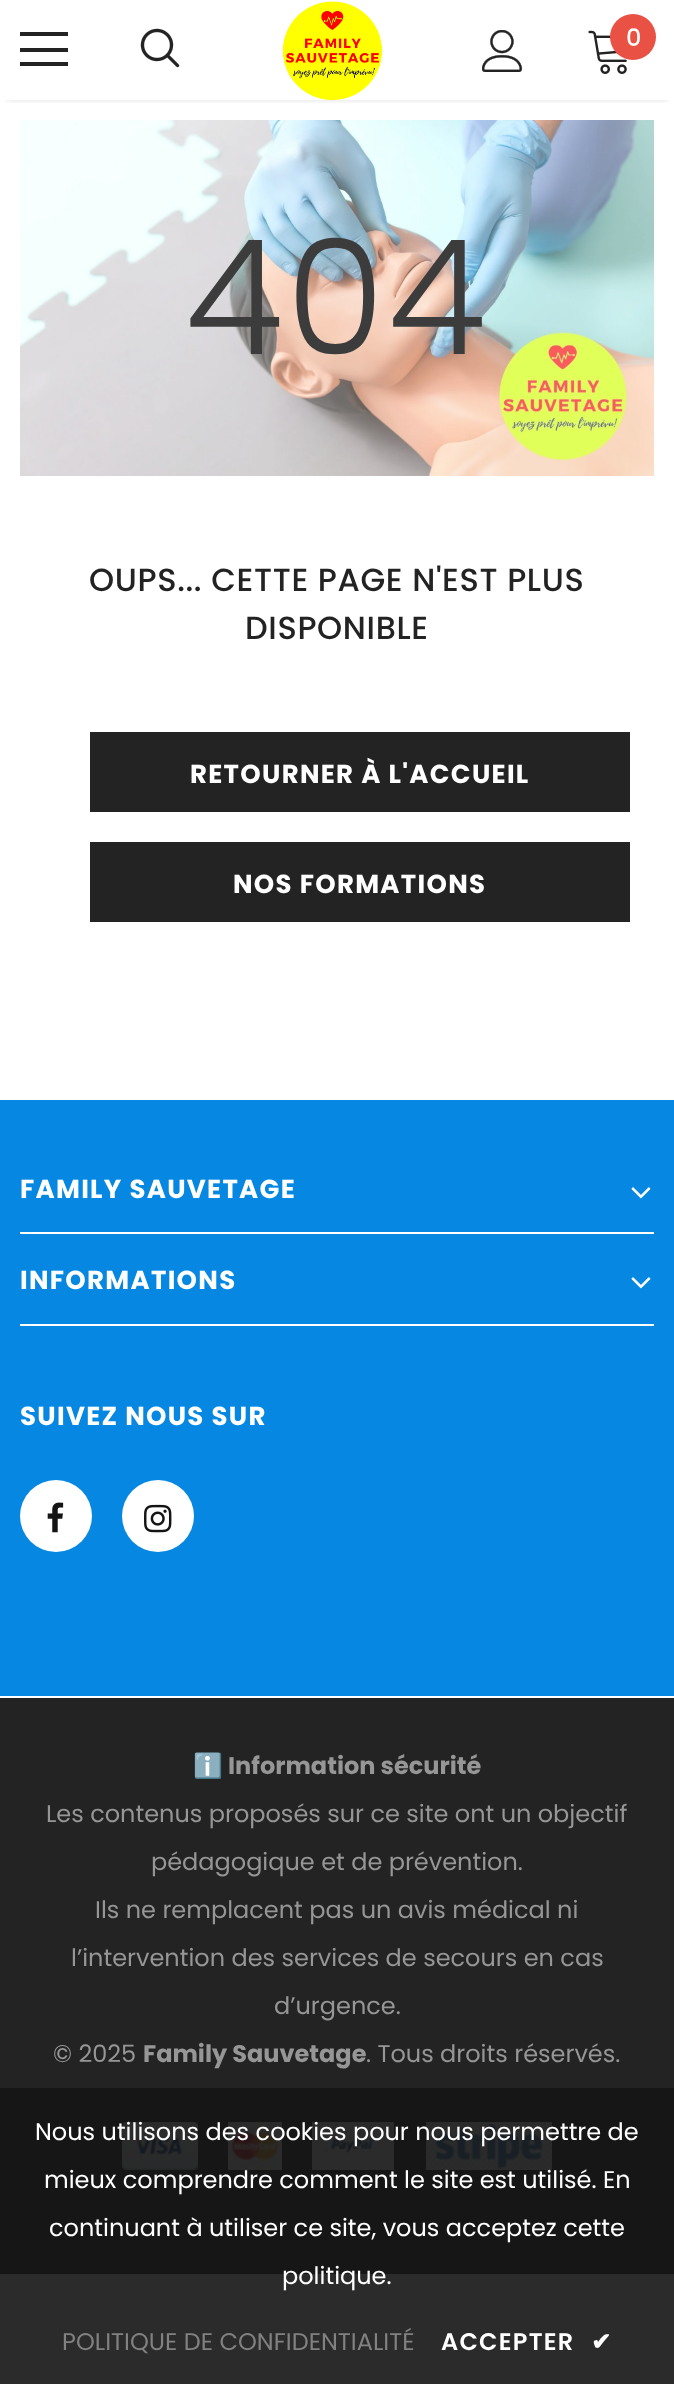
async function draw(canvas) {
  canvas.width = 674;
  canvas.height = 2384;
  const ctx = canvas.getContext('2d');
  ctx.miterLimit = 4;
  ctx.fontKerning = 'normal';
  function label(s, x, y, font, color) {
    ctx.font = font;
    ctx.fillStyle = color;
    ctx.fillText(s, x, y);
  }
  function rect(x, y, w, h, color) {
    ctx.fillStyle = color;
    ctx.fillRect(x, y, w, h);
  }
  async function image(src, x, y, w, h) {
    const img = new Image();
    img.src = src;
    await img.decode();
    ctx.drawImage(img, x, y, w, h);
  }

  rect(0, 0, 674, 2384, '#fff');
  rect(0, 2274, 674, 110, '#2b2b2b');
  ctx.save();
  ctx.beginPath();
  ctx.rect(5, 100, 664, 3);
  ctx.clip();
  ctx.fillStyle = '#0000001f';
  ctx.filter = 'blur(3px)';
  ctx.beginPath();
  ctx.rect(6, 12, 662, 88);
  ctx.fill();
  ctx.filter = 'none';
  ctx.restore();
  rect(20, 32, 48, 4, '#232323');
  rect(20, 48, 48, 4, '#232323');
  rect(20, 62, 48, 4, '#232323');
  await image('assets/img1.png', 140, 28, 40, 40);
  await image('assets/img2.png', 282, 1, 101, 99);
  await image('assets/img3.png', 482, 30, 41, 42);
  await image('assets/img4.png', 588, 30, 39, 44);
  ctx.fillStyle = '#e95144';
  ctx.beginPath();
  ctx.arc(633, 37, 23, 0, 2 * Math.PI);
  ctx.fill();
  label('0', 626, 46, '500 24px Poppins', '#fff');
  await image('assets/img5.png', 20, 120, 634, 356);
  ctx.letterSpacing = '3px';
  label('404', 185, 354, '300 160px Poppins', '#3c3c3c');
  ctx.letterSpacing = '0.65px';
  label('OUPS... CETTE PAGE N\'EST PLUS', 89, 591, '500 32px Poppins', '#232323');
  label('DISPONIBLE', 245, 639, '500 32px Poppins', '#232323');
  rect(90, 732, 540, 80, '#232323');
  ctx.letterSpacing = '1.3px';
  label('RETOURNER À L\'ACCUEIL', 190, 783, 'bold 26px Poppins', '#fff');
  rect(90, 842, 540, 80, '#232323');
  label('NOS FORMATIONS', 233, 893, 'bold 26px Poppins', '#fff');
  rect(0, 1100, 674, 596, '#0688e2');
  rect(20, 1232, 634, 2, '#fff');
  label('FAMILY SAUVETAGE', 20, 1198, 'bold 26px Poppins', '#fff');
  await image('assets/img6.png', 631, 1187, 20, 12);
  rect(20, 1324, 634, 2, '#fff');
  label('INFORMATIONS', 20, 1289, 'bold 26px Poppins', '#fff');
  await image('assets/img6.png', 631, 1277, 20, 12);
  label('SUIVEZ NOUS SUR', 20, 1425, 'bold 26px Poppins', '#fff');
  ctx.beginPath();
  ctx.arc(56, 1516, 36, 0, 2 * Math.PI);
  ctx.fill();
  await image('assets/img7.png', 47, 1502, 17, 31);
  ctx.beginPath();
  ctx.arc(158, 1516, 36, 0, 2 * Math.PI);
  ctx.fill();
  await image('assets/img8.png', 144, 1504, 28, 29);
  rect(0, 1698, 674, 390, '#232323');
  rect(0, 2088, 674, 186, '#161616');
  ctx.letterSpacing = '0px';
  label('ℹ️', 193, 1774, 'bold 24px Noto Color Emoji', '#969696');
  label('Information sécurité', 228, 1774, 'bold 24px Poppins', '#969696');
  label('Les contenus proposés sur ce site ont un objectif', 46, 1822, '24px Poppins', '#969696');
  label('pédagogique et de prévention.', 151, 1870, '24px Poppins', '#969696');
  label('Ils ne remplacent pas un avis médical ni', 95, 1918, '24px Poppins', '#969696');
  label('l’intervention des services de secours en cas', 71, 1966, '24px Poppins', '#969696');
  label('d’urgence.', 274, 2014, '24px Poppins', '#969696');
  label('© 2025', 53, 2062, '24px Poppins', '#969696');
  label('Family Sauvetage', 143, 2062, 'bold 24px Poppins', '#969696');
  label('. Tous droits réservés.', 366, 2062, '24px Poppins', '#969696');
  await image('assets/img9.png', 122, 2122, 76, 48);
  await image('assets/img10.png', 228, 2122, 54, 48);
  await image('assets/img11.png', 312, 2122, 82, 48);
  await image('assets/img12.png', 426, 2122, 126, 48);
  label('Nous utilisons des cookies pour nous permettre de', 35, 2140, '24px Poppins', '#fff');
  label('mieux comprendre comment le site est utilisé. En', 44, 2188, '24px Poppins', '#fff');
  label('continuant à utiliser ce site, vous acceptez cette', 49, 2236, '24px Poppins', '#fff');
  label('politique.', 282, 2284, '24px Poppins', '#fff');
  label('POLITIQUE DE CONFIDENTIALITÉ', 62, 2350, '24px Poppins', '#818181');
  ctx.letterSpacing = '1.25px';
  label('ACCEPTER', 441, 2350, '600 24px Poppins', '#fff');
  label('✔', 591, 2350, 'bold 24px DejaVu Sans', '#fff');
}

draw(document.querySelector('canvas'));
